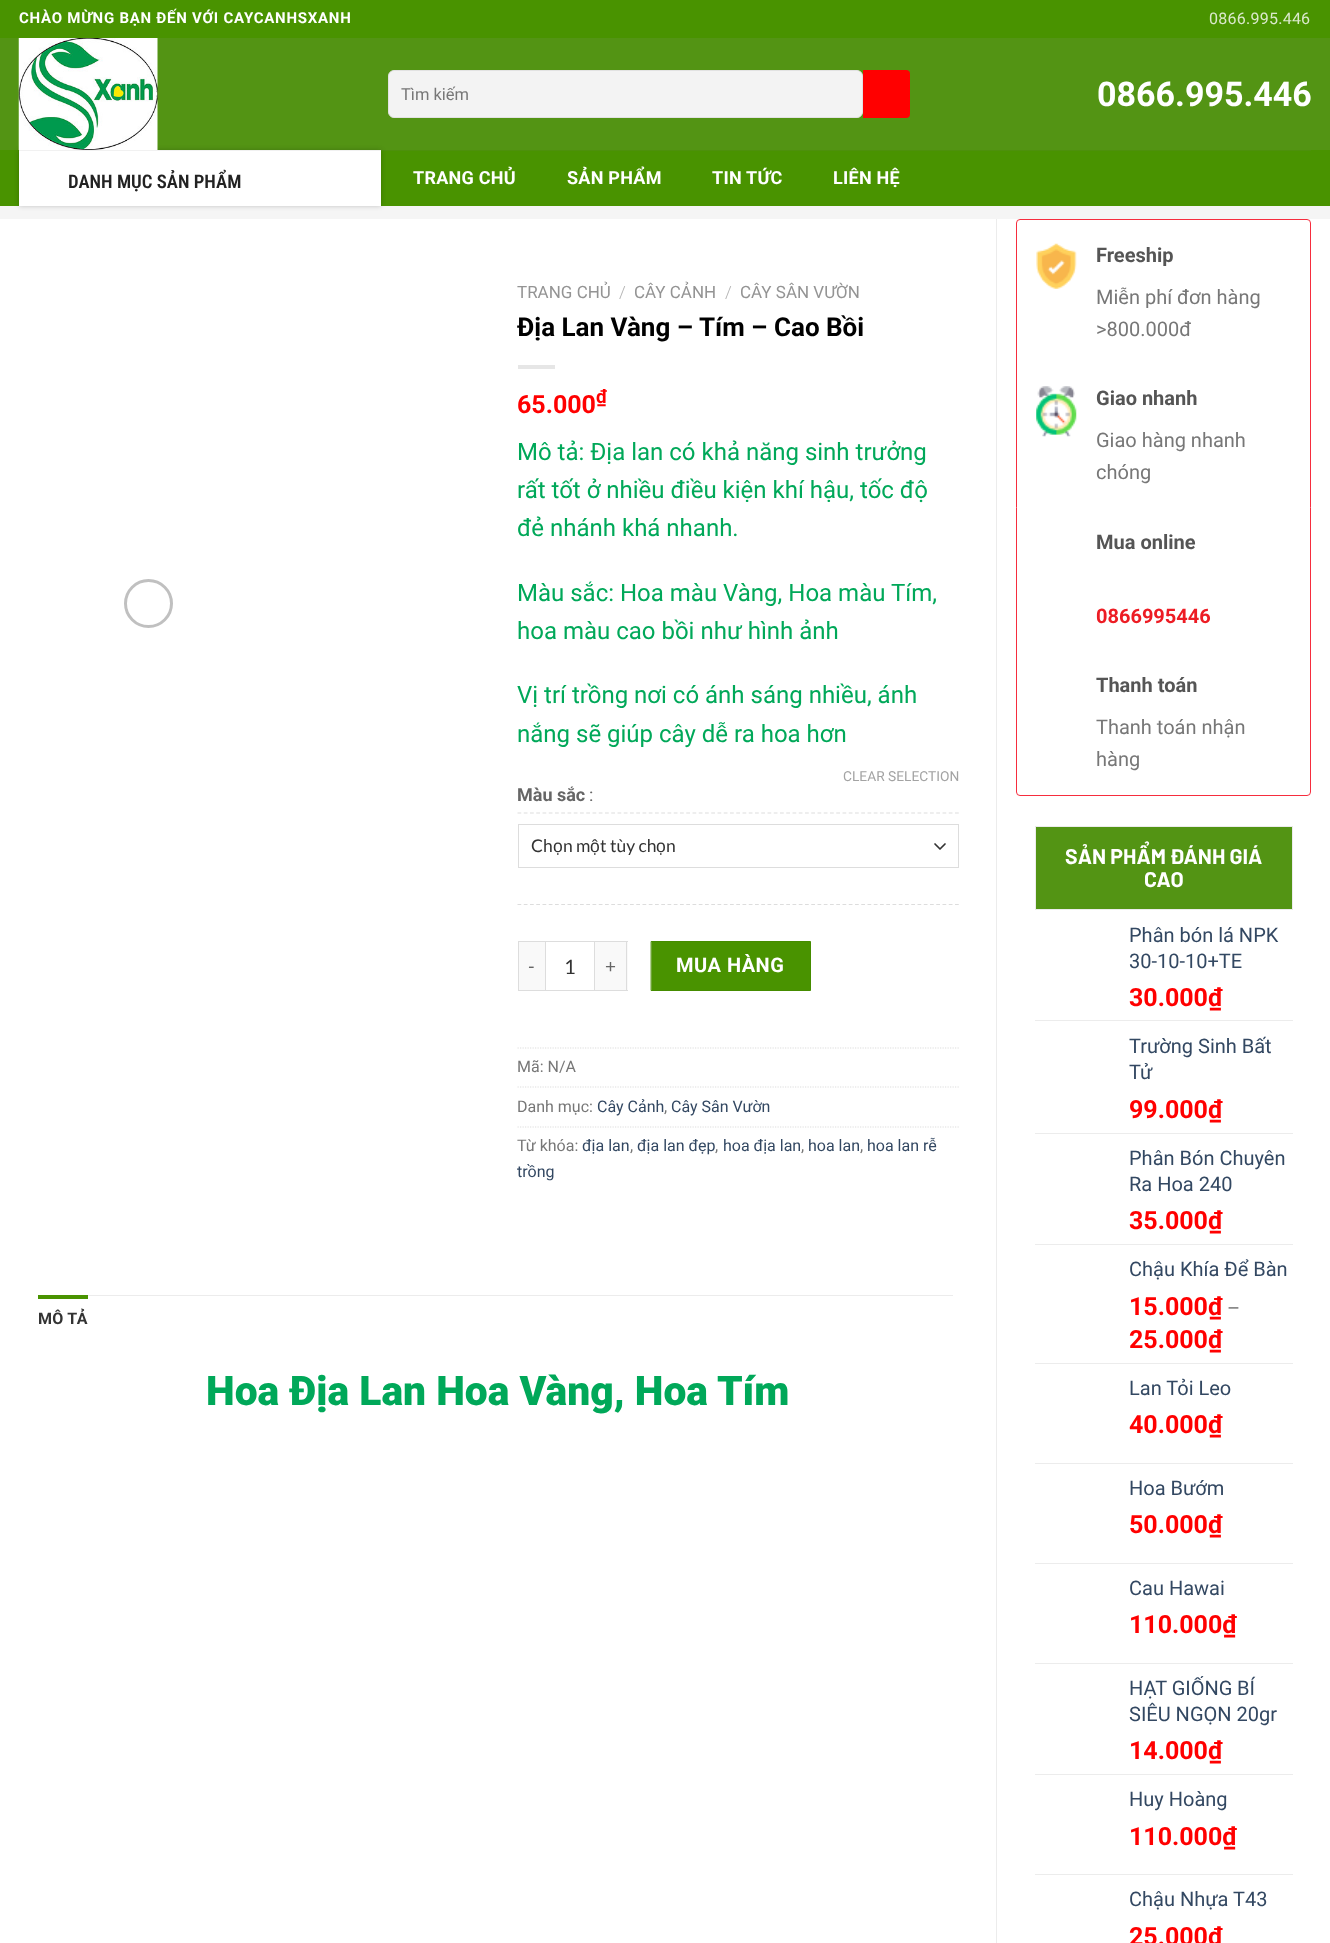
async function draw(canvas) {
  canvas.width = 1330;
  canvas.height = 1943;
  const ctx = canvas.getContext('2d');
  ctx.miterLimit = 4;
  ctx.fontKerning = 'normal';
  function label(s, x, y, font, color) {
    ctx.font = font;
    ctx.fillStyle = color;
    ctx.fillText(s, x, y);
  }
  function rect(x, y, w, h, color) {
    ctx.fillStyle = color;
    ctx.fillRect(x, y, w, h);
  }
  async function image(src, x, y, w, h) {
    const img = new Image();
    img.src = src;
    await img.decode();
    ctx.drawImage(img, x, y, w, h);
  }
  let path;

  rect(0, 0, 1330, 1943, '#f5f5f5');
  rect(0, 38, 1330, 112, '#539414');
  rect(0, 0, 1330, 38, '#499300');
  ctx.letterSpacing = '0.75px';
  label('CHÀO MỪNG BẠN ĐẾN VỚI CAYCANHSXANH', 19, 23, 'bold 15px Roboto', '#fff');
  ctx.letterSpacing = '0.25px';
  label('0866.995.446', 1209, 24, '16px Roboto', '#dbe9cc');
  rect(0, 150, 1330, 56, '#499300');
  ctx.fillStyle = '#00000033';
  ctx.filter = 'blur(2.5px)';
  ctx.beginPath();
  ctx.rect(19, 150, 362, 56);
  ctx.fill();
  ctx.filter = 'none';
  await image('assets/img1.png', 18, 38, 140, 112);
  ctx.fillStyle = '#f3f3f3';
  ctx.beginPath();
  ctx.roundRect(388.5, 70.5, 474, 47, 5.5);
  ctx.fill();
  ctx.strokeStyle = '#e2e2e2';
  ctx.stroke();
  ctx.letterSpacing = '0px';
  label('Tìm kiếm', 401, 100, '16.5px Roboto', '#777');
  ctx.fillStyle = '#f00';
  ctx.beginPath();
  ctx.roundRect(863, 70, 47, 48, [0, 4, 4, 0]);
  ctx.fill();
  label('0866.995.446', 1097, 106, 'bold 34px Roboto', '#fff');
  rect(19, 150, 362, 56, '#fff');
  rect(19, 150, 1292, 1, '#7777771a');
  label('DANH MỤC SẢN PHẨM', 68, 188, '600 18.75px Roboto Condensed', '#222');
  ctx.letterSpacing = '0.25px';
  label('TRANG CHỦ', 413, 184, 'bold 18px Roboto', '#fff');
  label('SẢN PHẨM', 567, 184, 'bold 18px Roboto', '#fff');
  label('TIN TỨC', 712, 184, 'bold 18px Roboto', '#fff');
  label('LIÊN HỆ', 833, 184, 'bold 18px Roboto', '#fff');
  rect(0, 219, 1330, 1724, '#fff');
  rect(996, 219, 1, 1724, '#ececec');
  ctx.beginPath();
  ctx.arc(148.5, 603.5, 23, 0, 2 * Math.PI);
  ctx.strokeStyle = '#c0c0c0';
  ctx.lineWidth = 3;
  ctx.stroke();
  ctx.letterSpacing = '0px';
  label('TRANG CHỦ', 517, 298, '17px Roboto', '#949494');
  label('/', 619, 298, '300 17px Roboto', '#b2b2b2');
  label('CÂY CẢNH', 634, 298, '17px Roboto', '#949494');
  label('/', 725, 298, '300 17px Roboto', '#b2b2b2');
  label('CÂY SÂN VƯỜN', 740, 298, '17px Roboto', '#949494');
  label('Địa Lan Vàng – Tím – Cao Bồi', 517, 336, 'bold 26px Roboto', '#000');
  rect(518, 365, 37, 4, '#e6e6e6');
  label('65.000', 517, 413, 'bold 25px Roboto', '#f00');
  label('₫', 596, 403, 'bold 18.75px Roboto', '#f00');
  label('Mô tả: Địa lan có khả năng sinh trưởng', 517, 460, '24px Roboto', '#00a859');
  label('rất tốt ở nhiều điều kiện khí hậu, tốc độ', 517, 498, '24px Roboto', '#00a859');
  label('đẻ nhánh khá nhanh.', 517, 536, '24px Roboto', '#00a859');
  label('Màu sắc: Hoa màu Vàng, Hoa màu Tím,', 517, 601, '24px Roboto', '#00a859');
  label('hoa màu cao bồi như hình ảnh', 517, 639, '24px Roboto', '#00a859');
  label('Vị trí trồng nơi có ánh sáng nhiều, ánh', 517, 703, '24px Roboto', '#00a859');
  label('nắng sẽ giúp cây dễ ra hoa hơn', 517, 742, '24px Roboto', '#00a859');
  path = new Path2D('M517.5 904.5H959');
  ctx.strokeStyle = '#ddd';
  ctx.lineWidth = 1.2;
  ctx.setLineDash([3.75, 2.5]);
  ctx.stroke(path);
  label('CLEAR SELECTION', 843, 781, '13.75px Roboto', '#a3a3a3');
  label('Màu sắc', 517, 801, 'bold 18px Roboto', '#666');
  label(':', 589, 801, '18px Roboto', '#666');
  path = new Path2D('M517.5 813H959');
  ctx.stroke(path);
  path = new Path2D('M935 844L940 849L945 844');
  ctx.strokeStyle = '#333';
  ctx.lineWidth = 1.7;
  ctx.lineCap = 'round';
  ctx.lineJoin = 'round';
  ctx.setLineDash([]);
  ctx.stroke(path);
  ctx.strokeStyle = '#ddd';
  ctx.lineWidth = 1;
  ctx.lineJoin = 'miter';
  ctx.strokeRect(518.5, 824.5, 440, 43);
  label('Ch', 531, 852, '17.5px Lato', '#333');
  label('ọ', 553, 852, '17.5px Liberation Sans', '#333');
  label('n m', 563, 852, '17.5px Lato', '#333');
  label('ộ', 590, 852, '17.5px Liberation Sans', '#333');
  label('t tùy ch', 600, 852, '17.5px Lato', '#333');
  label('ọ', 656, 852, '17.5px Liberation Sans', '#333');
  label('n', 666, 852, '17.5px Lato', '#333');
  rect(519, 942, 26, 48, '#f9f9f9');
  rect(518, 941, 27, 1, '#ddd');
  rect(518, 990, 27, 1, '#ddd');
  rect(518, 941, 1, 50, '#ddd');
  ctx.letterSpacing = '1px';
  label('-', 528, 973, '19px Lato', '#666');
  ctx.strokeRect(545.5, 941.5, 49, 49);
  ctx.letterSpacing = '0px';
  label('1', 564, 974, '20px Lato', '#333');
  rect(595, 942, 33, 48, '#f9f9f9');
  rect(595, 941, 33, 1, '#ddd');
  rect(626, 941, 1, 50, '#ddd');
  rect(595, 990, 33, 1, '#ddd');
  ctx.letterSpacing = '1px';
  label('+', 605, 973, '19px Lato', '#666');
  ctx.fillStyle = '#499300';
  ctx.beginPath();
  ctx.rect(651.5, 941.5, 159, 49);
  ctx.fill();
  ctx.strokeStyle = '#458c00';
  ctx.stroke();
  ctx.letterSpacing = '0.5px';
  label('MUA HÀNG', 676, 972, 'bold 20px Roboto', '#fff');
  path = new Path2D('M517.5 1048H959');
  ctx.strokeStyle = '#ddd';
  ctx.lineWidth = 1.2;
  ctx.lineCap = 'butt';
  ctx.setLineDash([1.25, 1.25]);
  ctx.stroke(path);
  ctx.letterSpacing = '0px';
  label('Mã: N/A', 517, 1072, '16px Roboto', '#777');
  path = new Path2D('M517.5 1087H959');
  ctx.stroke(path);
  label('Danh mục:', 517, 1112, '16px Roboto', '#777');
  label('Cây Cảnh', 597, 1112, '16px Roboto', '#334862');
  label(',', 664, 1112, '16px Roboto', '#777');
  label('Cây Sân Vườn', 671, 1112, '16px Roboto', '#334862');
  path = new Path2D('M517.5 1127H959');
  ctx.stroke(path);
  label('Từ khóa:', 517, 1151, '16px Roboto', '#777');
  label('địa lan', 582, 1151, '16px Roboto', '#334862');
  label(',', 630, 1151, '16px Roboto', '#777');
  label('địa lan đẹp', 637, 1151, '16px Roboto', '#334862');
  label(',', 715, 1151, '16px Roboto', '#777');
  label('hoa địa lan', 723, 1151, '16px Roboto', '#334862');
  label(',', 801, 1151, '16px Roboto', '#777');
  label('hoa lan', 808, 1151, '16px Roboto', '#334862');
  label(',', 860, 1151, '16px Roboto', '#777');
  label('hoa lan rễ', 867, 1151, '16px Roboto', '#334862');
  label('trồng', 517, 1177, '16px Roboto', '#334862');
  rect(88, 1295, 865, 1, '#ececec');
  rect(38, 1295, 50, 4, '#499300');
  ctx.letterSpacing = '0.25px';
  label('MÔ TẢ', 38, 1324, 'bold 16px Roboto', '#333');
  ctx.letterSpacing = '0px';
  label('Hoa Địa Lan Hoa Vàng, Hoa Tím', 206, 1405, '900 40.75px Roboto', '#00a859');
  ctx.beginPath();
  ctx.roundRect(1016.5, 219.5, 294, 576, 3.5);
  ctx.strokeStyle = '#f62d3e';
  ctx.lineWidth = 1;
  ctx.setLineDash([]);
  ctx.stroke();
  await image('assets/img2.png', 1036, 243, 41, 46);
  label('Freeship', 1096, 262, 'bold 20px Roboto', '#555');
  label('Miễn phí đơn hàng', 1096, 304, '20px Roboto', '#777');
  label('>800.000đ', 1096, 336, '20px Roboto', '#777');
  await image('assets/img3.png', 1036, 386, 41, 51);
  label('Giao nhanh', 1096, 405, 'bold 20px Roboto', '#555');
  label('Giao hàng nhanh', 1096, 447, '20px Roboto', '#777');
  label('chóng', 1096, 479, '20px Roboto', '#777');
  label('Mua online', 1096, 549, 'bold 20px Roboto', '#555');
  label('0866995446', 1096, 623, 'bold 20px Roboto', '#ed1c24');
  label('Thanh toán', 1096, 692, 'bold 20px Roboto', '#555');
  label('Thanh toán nhận', 1096, 734, '20px Roboto', '#777');
  label('hàng', 1096, 766, '20px Roboto', '#777');
  ctx.fillStyle = '#539414';
  ctx.beginPath();
  ctx.rect(1035.5, 826.5, 257, 83);
  ctx.fill();
  ctx.strokeStyle = '#ececec';
  ctx.stroke();
  label('SẢN PHẨM ĐÁNH GIÁ', 1065, 864, 'bold 21.25px Barlow', '#fff');
  label('CAO', 1144, 887, 'bold 21.25px Barlow', '#fff');
  label('Phân bón lá NPK', 1129, 942, '20px Roboto', '#334862');
  label('30-10-10+TE', 1129, 968, '20px Roboto', '#334862');
  label('30.000₫', 1129, 1006, 'bold 25px Roboto', '#f00');
  rect(1035, 1020, 258, 1, '#ececec');
  label('Trường Sinh Bất', 1129, 1053, '20px Roboto', '#334862');
  label('Tử', 1129, 1079, '20px Roboto', '#334862');
  label('99.000₫', 1129, 1118, 'bold 25px Roboto', '#f00');
  rect(1035, 1133, 258, 1, '#ececec');
  label('Phân Bón Chuyên', 1129, 1165, '20px Roboto', '#334862');
  label('Ra Hoa 240', 1129, 1191, '20px Roboto', '#334862');
  label('35.000₫', 1129, 1229, 'bold 25px Roboto', '#f00');
  rect(1035, 1244, 258, 1, '#ececec');
  label('Chậu Khía Để Bàn', 1129, 1276, '20px Roboto', '#334862');
  label('15.000₫', 1129, 1315, 'bold 25px Roboto', '#f00');
  label('–', 1227, 1315, '20px Roboto', '#777');
  label('25.000₫', 1129, 1348, 'bold 25px Roboto', '#f00');
  rect(1035, 1363, 258, 1, '#ececec');
  label('Lan Tỏi Leo', 1129, 1395, '20px Roboto', '#334862');
  label('40.000₫', 1129, 1433, 'bold 25px Roboto', '#f00');
  rect(1035, 1463, 258, 1, '#ececec');
  label('Hoa Bướm', 1129, 1495, '20px Roboto', '#334862');
  label('50.000₫', 1129, 1533, 'bold 25px Roboto', '#f00');
  rect(1035, 1563, 258, 1, '#ececec');
  label('Cau Hawai', 1129, 1595, '20px Roboto', '#334862');
  label('110.000₫', 1129, 1633, 'bold 25px Roboto', '#f00');
  rect(1035, 1663, 258, 1, '#ececec');
  ctx.save();
  ctx.beginPath();
  ctx.rect(1129, 1676, 164, 52);
  ctx.clip();
  label('HẠT GIỐNG', 1129, 1695, '20px Roboto', '#334862');
  ctx.restore();
  label('BÍ', 1237, 1695, '20px Roboto', '#334862');
  label('SIÊU NGỌN 20gr', 1129, 1721, '20px Roboto', '#334862');
  label('14.000₫', 1129, 1759, 'bold 25px Roboto', '#f00');
  rect(1035, 1774, 258, 1, '#ececec');
  label('Huy Hoàng', 1129, 1806, '20px Roboto', '#334862');
  label('110.000₫', 1129, 1845, 'bold 25px Roboto', '#f00');
  rect(1035, 1874, 258, 1, '#ececec');
  label('Chậu Nhựa T43', 1129, 1906, '20px Roboto', '#334862');
  label('25.000₫', 1129, 1945, 'bold 25px Roboto', '#f00');
}

draw(document.querySelector('canvas'));
